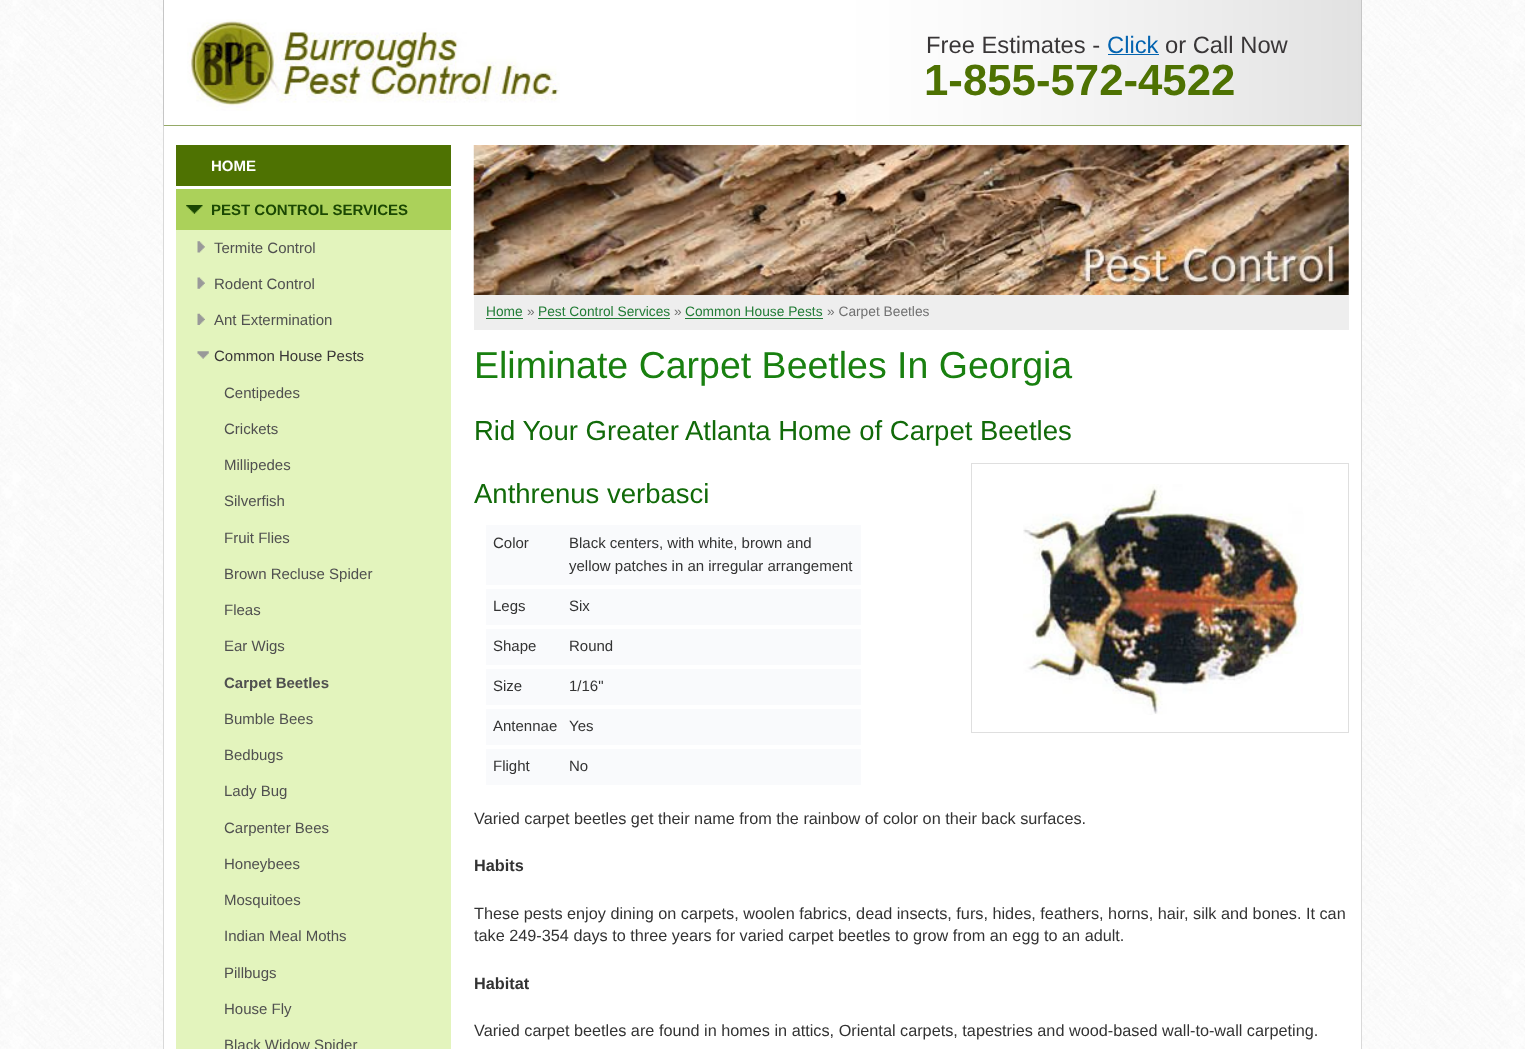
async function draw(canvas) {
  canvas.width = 1525;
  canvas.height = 1049;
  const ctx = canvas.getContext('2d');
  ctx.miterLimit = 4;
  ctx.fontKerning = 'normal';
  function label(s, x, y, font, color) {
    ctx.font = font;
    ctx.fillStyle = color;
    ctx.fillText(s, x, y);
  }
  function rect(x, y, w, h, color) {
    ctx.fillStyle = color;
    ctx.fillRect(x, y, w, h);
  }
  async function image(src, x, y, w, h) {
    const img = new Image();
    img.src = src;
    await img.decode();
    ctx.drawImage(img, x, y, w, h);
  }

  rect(0, 0, 1525, 1049, '#fff');
  await image('assets/img1.png', 0, 0, 1525, 1049);
  rect(164, 126, 1197, 923, '#fff');
  rect(1361, 0, 1, 1049, '#d9d9d9');
  rect(163, 0, 1, 1049, '#d9d9d9');
  await image('assets/img2.png', 163, 0, 1199, 127);
  rect(164, 125, 1197, 1, '#95aa67');
  await image('assets/img3.png', 187, 19, 373, 92);
  label('Free Estimates -', 926, 53, '23.75px Liberation Sans', '#393637');
  label('Click', 1107, 53, '23.75px Liberation Sans', '#0464b0');
  rect(1108, 54, 51, 1, '#0464b0');
  label('or Call Now', 1165, 53, '23.75px Liberation Sans', '#393637');
  label('1-855-572-4522', 924, 95, 'bold 43.75px Liberation Sans', '#4e7202');
  rect(176, 145, 275, 41, '#4e7202');
  label('HOME', 211, 171, 'bold 15px Liberation Sans', '#fff');
  rect(176, 189, 275, 41, '#abd15a');
  await image('assets/img4.png', 186, 205, 17, 9);
  label('PEST CONTROL SERVICES', 211, 215, 'bold 15px Liberation Sans', '#1b4803');
  rect(176, 230, 275, 819, '#e3f4bd');
  await image('assets/img5.png', 197, 241, 8, 12);
  label('Termite Control', 214, 253, '15px Liberation Sans', '#505050');
  await image('assets/img6.png', 197, 277, 8, 12);
  label('Rodent Control', 214, 289, '15px Liberation Sans', '#505050');
  await image('assets/img7.png', 197, 313, 8, 12);
  label('Ant Extermination', 214, 325, '15px Liberation Sans', '#505050');
  await image('assets/img8.png', 197, 351, 12, 8);
  label('Common House Pests', 214, 361, '15px Liberation Sans', '#393637');
  label('Centipedes', 224, 398, '15px Liberation Sans', '#505050');
  label('Crickets', 224, 434, '15px Liberation Sans', '#505050');
  label('Millipedes', 224, 470, '15px Liberation Sans', '#505050');
  label('Silverfish', 224, 506, '15px Liberation Sans', '#505050');
  label('Fruit Flies', 224, 543, '15px Liberation Sans', '#505050');
  label('Brown Recluse Spider', 224, 579, '15px Liberation Sans', '#505050');
  label('Fleas', 224, 615, '15px Liberation Sans', '#505050');
  label('Ear Wigs', 224, 651, '15px Liberation Sans', '#505050');
  label('Carpet Beetles', 224, 688, 'bold 15px Liberation Sans', '#505050');
  label('Bumble Bees', 224, 724, '15px Liberation Sans', '#505050');
  label('Bedbugs', 224, 760, '15px Liberation Sans', '#505050');
  label('Lady Bug', 224, 796, '15px Liberation Sans', '#505050');
  label('Carpenter Bees', 224, 833, '15px Liberation Sans', '#505050');
  label('Honeybees', 224, 869, '15px Liberation Sans', '#505050');
  label('Mosquitoes', 224, 905, '15px Liberation Sans', '#505050');
  label('Indian Meal Moths', 224, 941, '15px Liberation Sans', '#505050');
  label('Pillbugs', 224, 978, '15px Liberation Sans', '#505050');
  label('House Fly', 224, 1014, '15px Liberation Sans', '#505050');
  label('Black Widow Spider', 224, 1050, '15px Liberation Sans', '#505050');
  await image('assets/img9.png', 473, 145, 876, 150);
  rect(474, 295, 875, 35, '#eee');
  label('Home', 486, 316, '13.75px Liberation Sans', '#217c36');
  rect(486, 318, 37, 1, '#217c36');
  label('»', 527, 316, '13.75px Liberation Sans', '#717171');
  label('Pest Control Services', 538, 316, '13.75px Liberation Sans', '#217c36');
  rect(538, 318, 132, 1, '#217c36');
  label('»', 674, 316, '13.75px Liberation Sans', '#717171');
  label('Common House Pests', 685, 316, '13.75px Liberation Sans', '#217c36');
  rect(685, 318, 138, 1, '#217c36');
  label('» Carpet Beetles', 827, 316, '13.75px Liberation Sans', '#717171');
  label('Eliminate Carpet Beetles In Georgia', 474, 378, '37.5px Liberation Sans', '#198010');
  label('Rid Your Greater Atlanta Home of Carpet Beetles', 474, 440, '27.5px Liberation Sans', '#116a09');
  label('Anthrenus verbasci', 474, 503, '27.5px Liberation Sans', '#116a09');
  ctx.strokeStyle = '#dfdfdf';
  ctx.strokeRect(971.5, 463.5, 377, 269);
  await image('assets/img10.png', 1023, 484, 281, 231);
  rect(486, 525, 375, 260, '#f9fafc');
  rect(486, 585, 375, 4, '#fff');
  label('Color', 493, 548, '15px Liberation Sans', '#333');
  label('Black centers, with white, brown and', 569, 548, '15px Liberation Sans', '#333');
  label('yellow patches in an irregular arrangement', 569, 571, '15px Liberation Sans', '#333');
  rect(486, 625, 375, 4, '#fff');
  label('Legs', 493, 611, '15px Liberation Sans', '#333');
  label('Six', 569, 611, '15px Liberation Sans', '#333');
  rect(486, 665, 375, 4, '#fff');
  label('Shape', 493, 651, '15px Liberation Sans', '#333');
  label('Round', 569, 651, '15px Liberation Sans', '#333');
  rect(486, 705, 375, 4, '#fff');
  label('Size', 493, 691, '15px Liberation Sans', '#333');
  label('1/16"', 569, 691, '15px Liberation Sans', '#333');
  rect(486, 745, 375, 4, '#fff');
  label('Antennae', 493, 731, '15px Liberation Sans', '#333');
  label('Yes', 569, 731, '15px Liberation Sans', '#333');
  label('Flight', 493, 771, '15px Liberation Sans', '#333');
  label('No', 569, 771, '15px Liberation Sans', '#333');
  label('Varied carpet beetles get their name from the rainbow of color on their back surfaces.', 474, 824, '16.25px Liberation Sans', '#333');
  label('Habits', 474, 871, 'bold 16.25px Liberation Sans', '#333');
  label('These pests enjoy dining on carpets, woolen fabrics, dead insects, furs, hides, feathers, horns, hair, silk and bones. It can', 474, 919, '16.25px Liberation Sans', '#333');
  label('take 249-354 days to three years for varied carpet beetles to grow from an egg to an adult.', 474, 941, '16.25px Liberation Sans', '#333');
  label('Habitat', 474, 989, 'bold 16.25px Liberation Sans', '#333');
  label('Varied carpet beetles are found in homes in attics, Oriental carpets, tapestries and wood-based wall-to-wall carpeting.', 474, 1036, '16.25px Liberation Sans', '#333');
}

draw(document.querySelector('canvas'));
